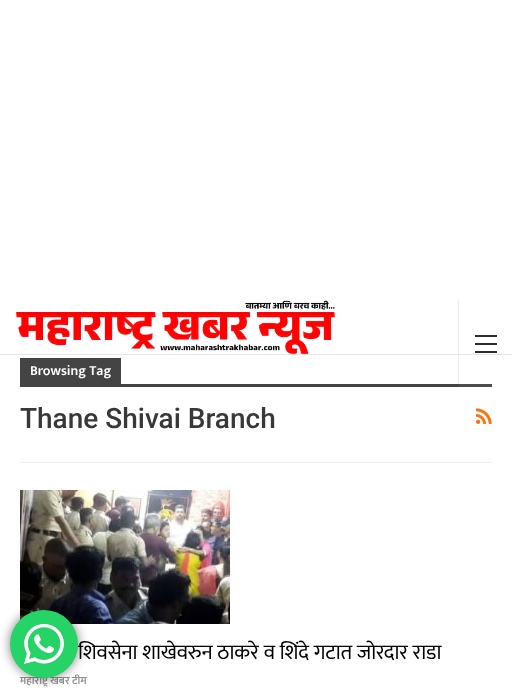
async function draw(canvas) {
  canvas.width = 512;
  canvas.height = 688;
  const ctx = canvas.getContext('2d');
  ctx.miterLimit = 4;
  ctx.fontKerning = 'normal';
  function label(s, x, y, font, color) {
    ctx.font = font;
    ctx.fillStyle = color;
    ctx.fillText(s, x, y);
  }
  function rect(x, y, w, h, color) {
    ctx.fillStyle = color;
    ctx.fillRect(x, y, w, h);
  }
  async function image(src, x, y, w, h) {
    const img = new Image();
    img.src = src;
    await img.decode();
    ctx.drawImage(img, x, y, w, h);
  }

  rect(0, 0, 512, 688, '#fff');
  rect(458, 300, 1, 87, '#ededed');
  rect(0, 354, 458, 1, '#e5e5e5');
  rect(458, 354, 54, 1, '#e6e6e6');
  rect(458, 354, 1, 1, '#d6d6d6');
  await image('assets/img1.png', 16, 300, 319, 54);
  rect(475, 343, 22, 2, '#2c2c2c');
  rect(475, 335, 22, 2, '#2c2c2c');
  rect(475, 351, 22, 2, '#2c2c2c');
  rect(20, 462, 472, 1, '#f0f0f0');
  rect(20, 358, 101, 26, '#444');
  label('Browsing Tag', 30, 375, '600 14px Mukta', '#fff');
  rect(20, 384, 438, 3, '#444');
  rect(458, 384, 34, 3, '#4d4d4d');
  rect(458, 384, 1, 3, '#484848');
  label('Thane Shivai Branch', 20, 428, '500 28px Roboto', '#383838');
  await image('assets/img2.png', 476, 408, 16, 16);
  await image('assets/img3.png', 20, 490, 210, 134);
  ctx.letterSpacing = '-0.2px';
  ctx.wordSpacing = '0.5px';
  label('शिवसेना शाखेवरुन ठाकरे व शिंदे गटात जोरदार राडा', 78, 659, '21px Mukta', '#000');
  ctx.letterSpacing = '0px';
  ctx.wordSpacing = '0px';
  label('महाराष्ट्र खबर टीम', 20, 684, '600 11px Mukta', '#939292');
  ctx.fillStyle = '#00000080';
  ctx.filter = 'blur(5.5px)';
  ctx.beginPath();
  ctx.roundRect(10, 610, 68, 68, 34);
  ctx.fill();
  ctx.filter = 'none';
  ctx.fillStyle = '#25d366';
  ctx.beginPath();
  ctx.arc(44, 644, 34, 0, 2 * Math.PI);
  ctx.fill();
  await image('assets/img4.png', 24, 624, 40, 40);
}

draw(document.querySelector('canvas'));
